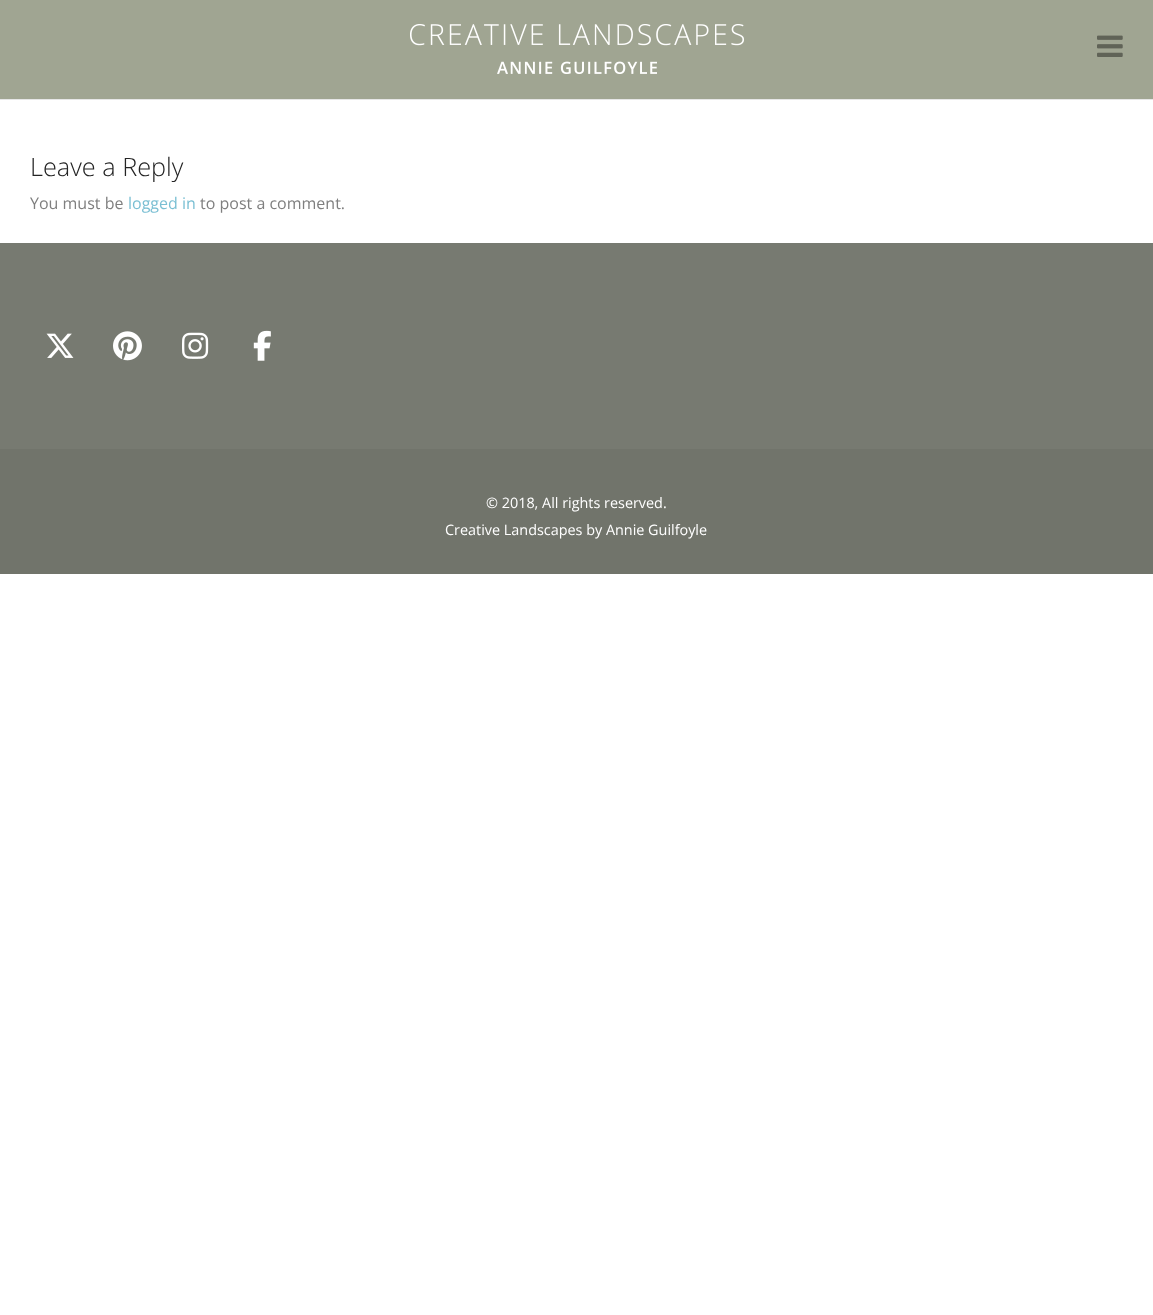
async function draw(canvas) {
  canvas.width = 1153;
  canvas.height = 1315;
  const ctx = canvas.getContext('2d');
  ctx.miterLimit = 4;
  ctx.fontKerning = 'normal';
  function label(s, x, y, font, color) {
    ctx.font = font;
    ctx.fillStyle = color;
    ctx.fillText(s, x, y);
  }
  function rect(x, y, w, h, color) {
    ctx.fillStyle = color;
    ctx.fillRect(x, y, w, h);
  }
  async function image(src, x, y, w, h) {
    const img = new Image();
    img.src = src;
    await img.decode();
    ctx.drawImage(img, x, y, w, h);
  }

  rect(0, 0, 1153, 1315, '#fff');
  rect(0, 99, 1153, 1, '#e6e6e6');
  rect(0, 0, 1153, 99, '#a0a592');
  await image('assets/img1.png', 410, 24, 334, 50);
  await image('assets/img2.png', 1097, 35, 26, 22);
  label('Leave a Reply', 30, 176, '300 25.25px Open Sans', '#242424');
  label('You must be', 30, 209, '16px Open Sans', '#7f7f7f');
  label('logged in', 128, 209, '16px Open Sans', '#7abfd3');
  label('to post a comment.', 200, 209, '16px Open Sans', '#7f7f7f');
  rect(0, 243, 1153, 206, '#777a71');
  await image('assets/img3.png', 46, 333, 28, 25);
  await image('assets/img4.png', 113, 331, 29, 30);
  await image('assets/img5.png', 182, 332, 27, 27);
  await image('assets/img6.png', 253, 330, 18, 31);
  rect(0, 449, 1153, 125, '#71746b');
  label('© 2018, All rights reserved.', 486, 508, '14.4px Open Sans', '#fff');
  label('Creative Landscapes by Annie Guilfoyle', 445, 535, '14.4px Open Sans', '#fff');
}

draw(document.querySelector('canvas'));
